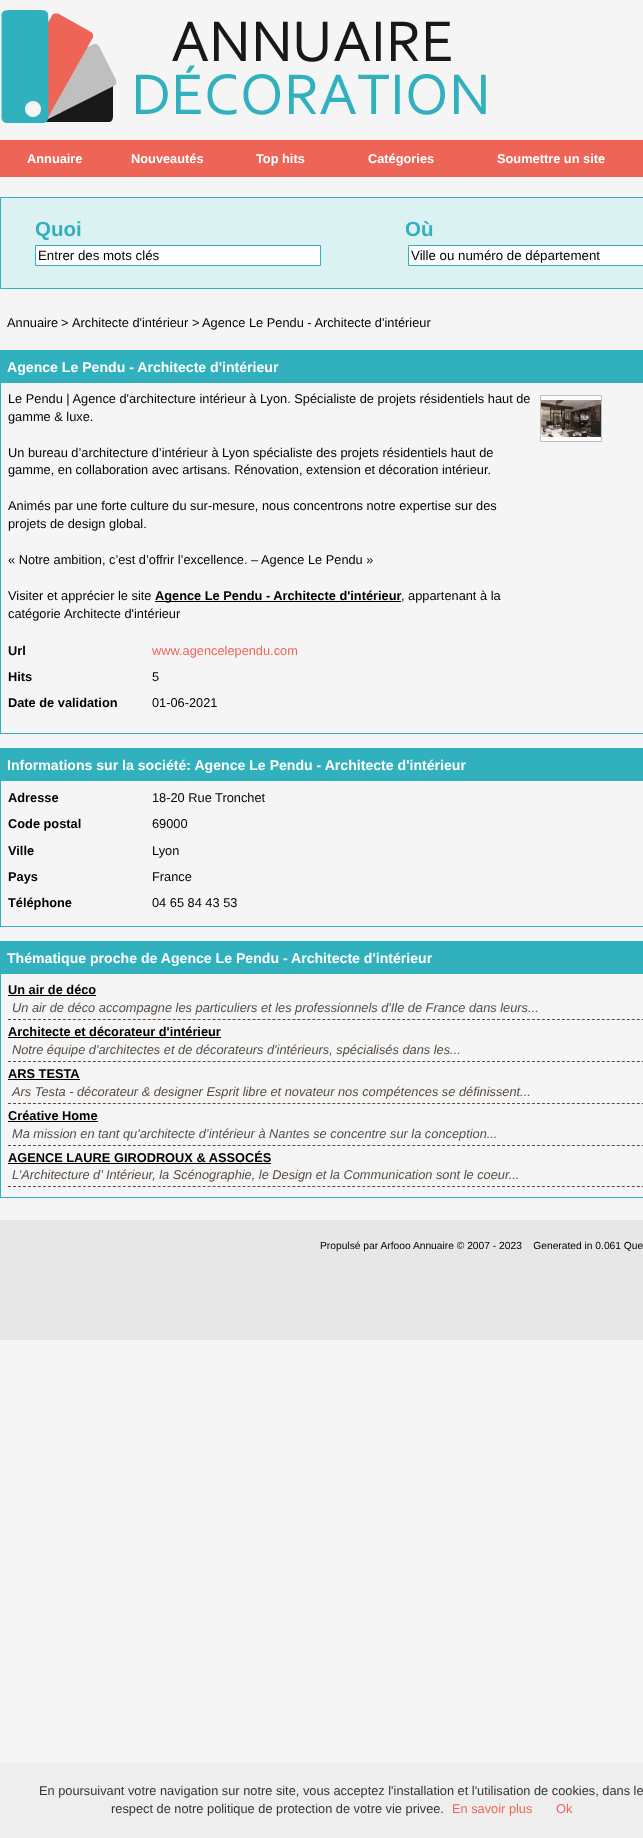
async function draw(canvas) {
  canvas.width = 643;
  canvas.height = 1838;
  const ctx = canvas.getContext('2d');
  ctx.miterLimit = 4;
  ctx.fontKerning = 'normal';
  function label(s, x, y, font, color) {
    ctx.font = font;
    ctx.fillStyle = color;
    ctx.fillText(s, x, y);
  }
  function rect(x, y, w, h, color) {
    ctx.fillStyle = color;
    ctx.fillRect(x, y, w, h);
  }
  async function image(src, x, y, w, h) {
    const img = new Image();
    img.src = src;
    await img.decode();
    ctx.drawImage(img, x, y, w, h);
  }
  let path;

  rect(0, 0, 643, 1838, '#f5f5f5');
  await image('assets/img1.png', 0, 0, 643, 140);
  rect(0, 140, 643, 37, '#ee6558');
  label('Annuaire', 27, 163, 'bold 12.8px Liberation Sans', '#fff');
  label('Nouveautés', 131, 163, 'bold 12.8px Liberation Sans', '#fff');
  label('Top hits', 256, 163, 'bold 12.8px Liberation Sans', '#fff');
  label('Catégories', 368, 163, 'bold 12.8px Liberation Sans', '#fff');
  label('Soumettre un site', 497, 163, 'bold 12.8px Liberation Sans', '#fff');
  ctx.fillStyle = '#dcf1f1';
  ctx.beginPath();
  ctx.rect(0.5, 197.5, 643, 91);
  ctx.fill();
  ctx.strokeStyle = '#31b0be';
  ctx.stroke();
  label('Quoi', 35, 236, 'bold 20.5px Liberation Sans', '#31b0be');
  label('Où', 405, 236, 'bold 20.5px Liberation Sans', '#31b0be');
  ctx.fillStyle = '#fff';
  ctx.beginPath();
  ctx.rect(35.5, 245.5, 285, 20);
  ctx.fill();
  ctx.stroke();
  label('Entrer des mots clés', 38, 260, '13.3px Liberation Sans', '#000');
  ctx.fillStyle = '#fff';
  ctx.beginPath();
  ctx.rect(408.5, 245.5, 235, 20);
  ctx.fill();
  ctx.stroke();
  label('Ville ou numéro de département', 411, 260, '13.3px Liberation Sans', '#000');
  label('Annuaire', 7, 327, '12.8px Liberation Sans', '#000');
  label('>', 61, 327, '12.8px Liberation Sans', '#000');
  label('Architecte d\'intérieur', 72, 327, '12.8px Liberation Sans', '#000');
  label('>', 192, 327, '12.8px Liberation Sans', '#000');
  label('Agence Le Pendu - Architecte d\'intérieur', 202, 327, '12.8px Liberation Sans', '#000');
  rect(0, 350, 643, 32, '#31b0be');
  label('Agence Le Pendu - Architecte d\'intérieur', 7, 372, 'bold 14.1px Liberation Sans', '#fff');
  ctx.strokeRect(0.5, 382.5, 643, 351);
  label('Le Pendu | Agence d\'architecture intérieur à Lyon. Spécialiste de projets résidentiels haut de', 8, 403, '12.8px Liberation Sans', '#000');
  label('gamme & luxe.', 8, 421, '12.8px Liberation Sans', '#000');
  label('Un bureau d’architecture d’intérieur à Lyon spécialiste des projets résidentiels haut de', 8, 457, '12.8px Liberation Sans', '#000');
  label('gamme, en collaboration avec artisans. Rénovation, extension et décoration intérieur.', 8, 474, '12.8px Liberation Sans', '#000');
  label('Animés par une forte culture du sur-mesure, nous concentrons notre expertise sur des', 8, 510, '12.8px Liberation Sans', '#000');
  label('projets de design global.', 8, 528, '12.8px Liberation Sans', '#000');
  label('« Notre ambition, c’est d’offrir l’excellence. – Agence Le Pendu »', 8, 564, '12.8px Liberation Sans', '#000');
  label('Visiter et apprécier le site', 8, 600, '12.8px Liberation Sans', '#000');
  rect(155, 601, 246, 1, '#000');
  label('Agence Le Pendu - Architecte d\'intérieur', 155, 600, 'bold 12.8px Liberation Sans', '#000');
  label(', appartenant à la', 401, 600, '12.8px Liberation Sans', '#000');
  label('catégorie', 8, 618, '12.8px Liberation Sans', '#000');
  label('Architecte d\'intérieur', 64, 618, '12.8px Liberation Sans', '#000');
  label('Url', 8, 655, 'bold 12.8px Liberation Sans', '#000');
  label('www.agencelependu.com', 152, 655, '12.8px Liberation Sans', '#ee6558');
  label('Hits', 8, 681, 'bold 12.8px Liberation Sans', '#000');
  label('5', 152, 681, '12.8px Liberation Sans', '#000');
  label('Date de validation', 8, 707, 'bold 12.8px Liberation Sans', '#000');
  label('01-06-2021', 152, 707, '12.8px Liberation Sans', '#000');
  ctx.strokeStyle = '#bfbfbf';
  ctx.strokeRect(540.5, 395.5, 61, 46);
  await image('assets/img2.png', 541, 396, 60, 45);
  rect(0, 748, 643, 32, '#31b0be');
  label('Informations sur la société: Agence Le Pendu - Architecte d\'intérieur', 7, 770, 'bold 14.1px Liberation Sans', '#fff');
  ctx.strokeStyle = '#31b0be';
  ctx.strokeRect(0.5, 780.5, 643, 146);
  label('Adresse', 8, 802, 'bold 12.8px Liberation Sans', '#000');
  label('18-20 Rue Tronchet', 152, 802, '12.8px Liberation Sans', '#000');
  label('Code postal', 8, 828, 'bold 12.8px Liberation Sans', '#000');
  label('69000', 152, 828, '12.8px Liberation Sans', '#000');
  label('Ville', 8, 855, 'bold 12.8px Liberation Sans', '#000');
  label('Lyon', 152, 855, '12.8px Liberation Sans', '#000');
  label('Pays', 8, 881, 'bold 12.8px Liberation Sans', '#000');
  label('France', 152, 881, '12.8px Liberation Sans', '#000');
  label('Téléphone', 8, 907, 'bold 12.8px Liberation Sans', '#000');
  label('04 65 84 43 53', 152, 907, '12.8px Liberation Sans', '#000');
  rect(0, 941, 643, 32, '#31b0be');
  label('Thématique proche de Agence Le Pendu - Architecte d\'intérieur', 7, 963, 'bold 14.1px Liberation Sans', '#fff');
  ctx.strokeRect(0.5, 973.5, 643, 224);
  path = new Path2D('M8 1019.5H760');
  ctx.strokeStyle = '#574d44';
  ctx.setLineDash([3, 1.99]);
  ctx.stroke(path);
  label('Un air de déco', 8, 994, 'bold 12.8px Liberation Sans', '#000');
  rect(8, 995, 88, 1, '#000');
  label('Un air de déco accompagne les particuliers et les professionnels d\'Ile de France dans leurs...', 12, 1012, 'italic 12.8px Liberation Sans', '#574d44');
  path = new Path2D('M8 1061.5H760');
  ctx.stroke(path);
  label('Architecte et décorateur d\'intérieur', 8, 1036, 'bold 12.8px Liberation Sans', '#000');
  rect(8, 1037, 213, 1, '#000');
  label('Notre équipe d\'architectes et de décorateurs d\'intérieurs, spécialisés dans les...', 12, 1054, 'italic 12.8px Liberation Sans', '#574d44');
  path = new Path2D('M8 1103.5H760');
  ctx.stroke(path);
  label('ARS TESTA', 8, 1078, 'bold 12.8px Liberation Sans', '#000');
  rect(8, 1079, 72, 1, '#000');
  label('Ars Testa - décorateur & designer Esprit libre et novateur nos compétences se définissent...', 12, 1096, 'italic 12.8px Liberation Sans', '#574d44');
  path = new Path2D('M8 1145.5H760');
  ctx.stroke(path);
  label('Créative Home', 8, 1120, 'bold 12.8px Liberation Sans', '#000');
  rect(8, 1121, 90, 1, '#000');
  label('Ma mission en tant qu\'architecte d’intérieur à Nantes se concentre sur la conception...', 12, 1138, 'italic 12.8px Liberation Sans', '#574d44');
  path = new Path2D('M8 1186.5H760');
  ctx.stroke(path);
  label('AGENCE LAURE GIRODROUX & ASSOCÉS', 8, 1162, 'bold 12.8px Liberation Sans', '#000');
  rect(8, 1163, 263, 1, '#000');
  label('L’Architecture d’ Intérieur, la Scénographie, le Design et la Communication sont le coeur...', 12, 1179, 'italic 12.8px Liberation Sans', '#574d44');
  rect(0, 1220, 643, 120, '#e7e7e7');
  label('Propulsé par Arfooo Annuaire © 2007 - 2023    Generated in 0.061 Que', 320, 1249, '10.25px Liberation Sans', '#000');
  rect(0, 1762, 643, 76, '#eee');
  label('En poursuivant votre navigation sur notre site, vous acceptez l\'installation et l\'utilisation de cookies, dans le', 39, 1795, '12.8px Liberation Sans', '#333');
  label('respect de notre politique de protection de votre vie privee.', 111, 1813, '12.8px Liberation Sans', '#333');
  label('En savoir plus', 452, 1813, '12.8px Liberation Sans', '#ee6558');
  label('Ok', 556, 1813, '12.8px Liberation Sans', '#ee6558');
}

draw(document.querySelector('canvas'));
